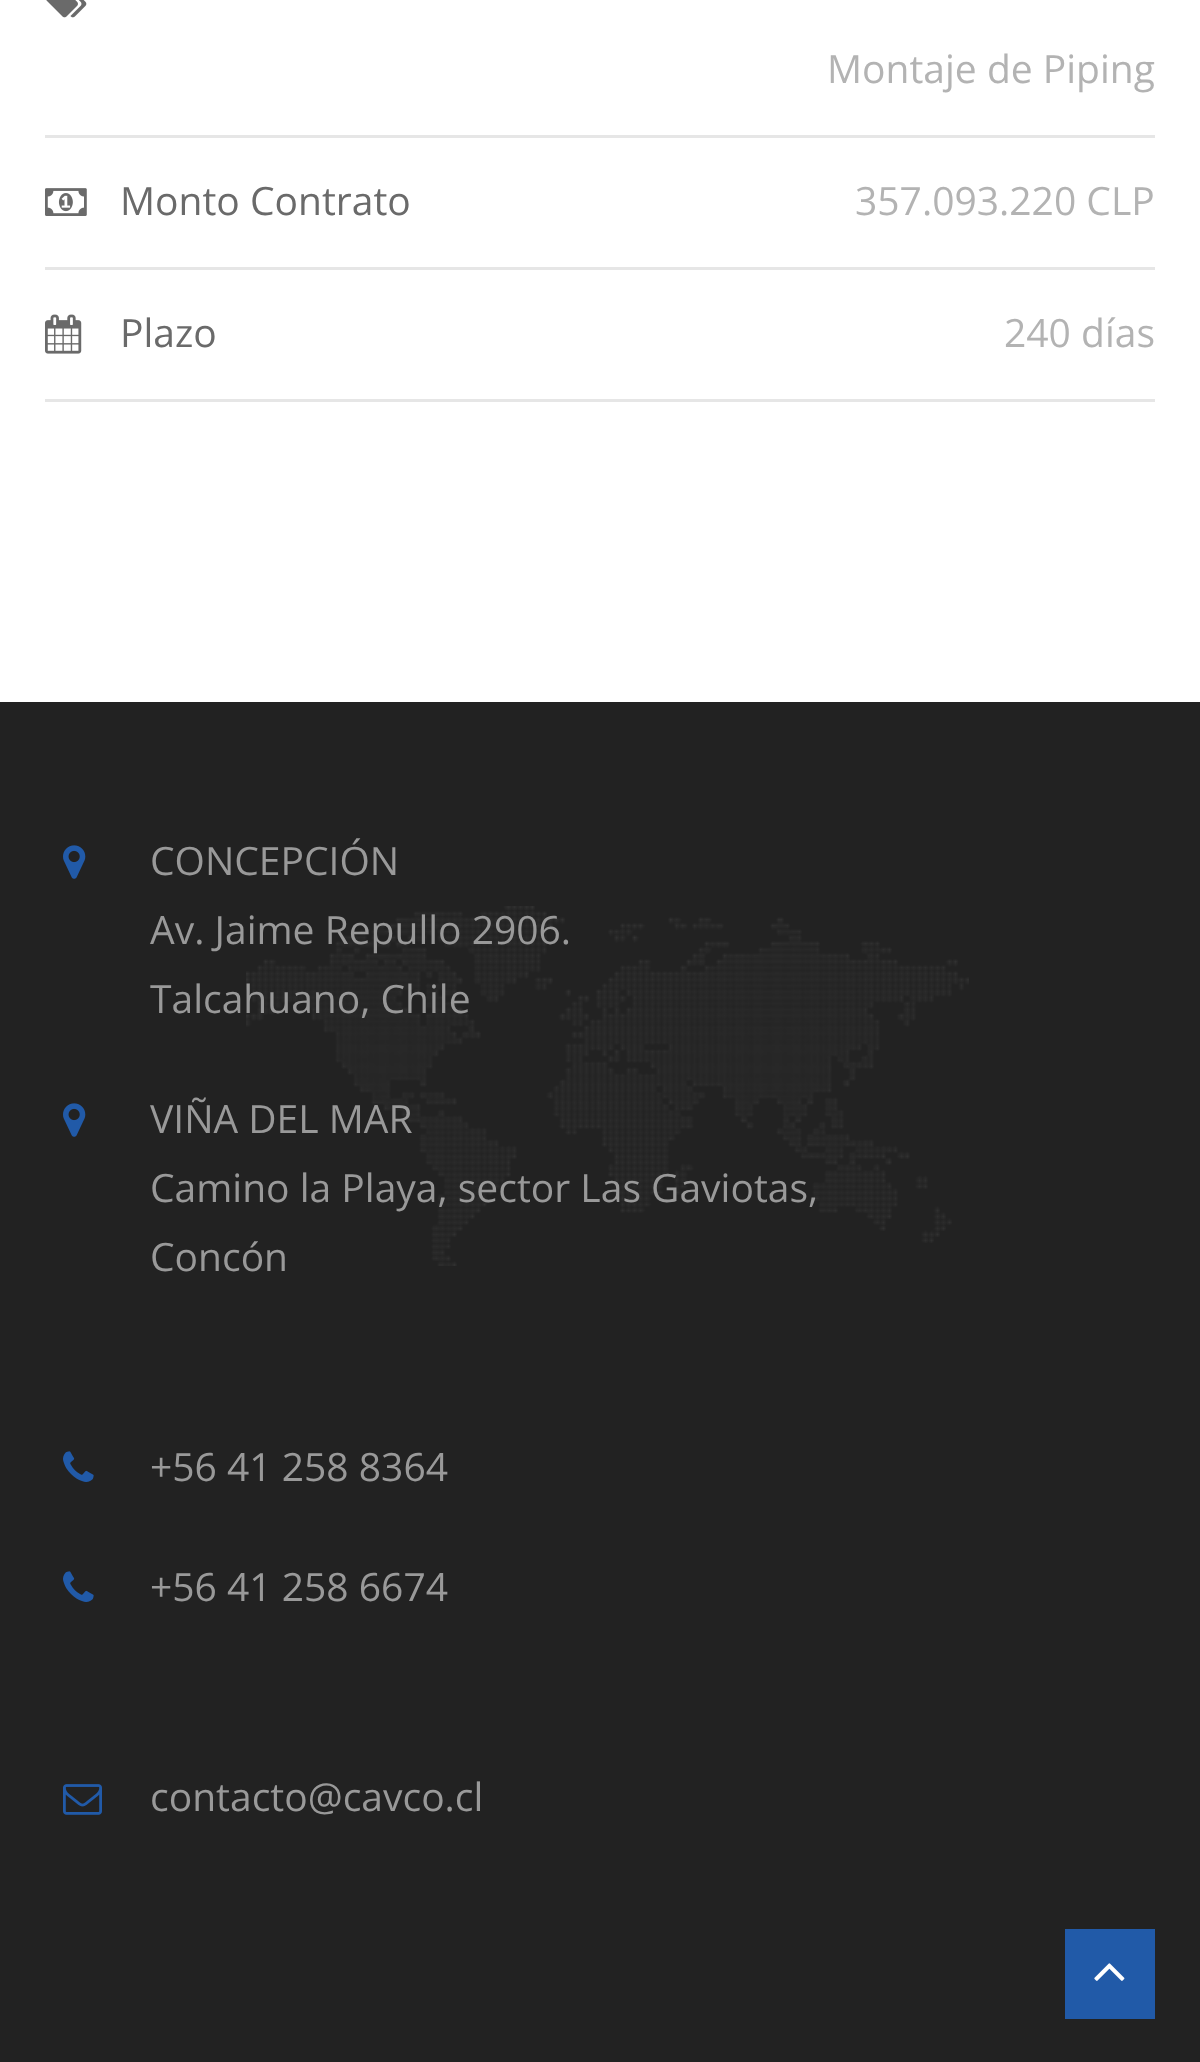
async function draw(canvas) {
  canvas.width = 1200;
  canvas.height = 2062;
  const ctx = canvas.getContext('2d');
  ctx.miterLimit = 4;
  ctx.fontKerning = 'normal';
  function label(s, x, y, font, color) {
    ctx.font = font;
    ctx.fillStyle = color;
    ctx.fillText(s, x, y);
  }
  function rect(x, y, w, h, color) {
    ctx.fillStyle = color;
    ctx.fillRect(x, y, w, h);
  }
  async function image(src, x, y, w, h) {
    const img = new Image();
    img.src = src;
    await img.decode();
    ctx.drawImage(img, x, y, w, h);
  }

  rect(0, 0, 1200, 2062, '#fff');
  rect(45, 135, 1110, 3, '#e6e6e6');
  await image('assets/img1.png', 46, 0, 41, 18);
  label('Montaje de Piping', 827, 83, '39px Open Sans', '#b3b3b3');
  rect(45, 267, 1110, 3, '#e6e6e6');
  await image('assets/img2.png', 45, 188, 42, 28);
  label('Monto Contrato', 120, 215, '39px Open Sans', '#6a6a6a');
  label('357.093.220 CLP', 855, 215, '39px Open Sans', '#b3b3b3');
  rect(45, 399, 1110, 3, '#e6e6e6');
  await image('assets/img3.png', 45, 314, 37, 40);
  label('Plazo', 120, 347, '39px Open Sans', '#6a6a6a');
  label('240 días', 1004, 347, '39px Open Sans', '#b3b3b3');
  rect(0, 702, 1200, 1360, '#222');
  await image('assets/img4.png', 246, 906, 723, 360);
  await image('assets/img5.png', 63, 845, 23, 34);
  label('CONCEPCIÓN', 150, 875, '39px Open Sans', '#999');
  label('Av. Jaime Repullo 2906.', 150, 944, '39px Open Sans', '#999');
  label('Talcahuano, Chile', 150, 1013, '39px Open Sans', '#999');
  await image('assets/img5.png', 63, 1103, 23, 34);
  label('VIÑA DEL MAR', 150, 1133, '39px Open Sans', '#999');
  label('Camino la Playa, sector Las Gaviotas,', 150, 1202, '39px Open Sans', '#999');
  label('Concón', 150, 1271, '39px Open Sans', '#999');
  await image('assets/img6.png', 63, 1451, 31, 31);
  label('+56 41 258 8364', 150, 1481, '39px Open Sans', '#999');
  await image('assets/img6.png', 63, 1571, 31, 31);
  label('+56 41 258 6674', 150, 1601, '39px Open Sans', '#999');
  await image('assets/img7.png', 63, 1784, 39, 31);
  label('contacto@cavco.cl', 150, 1811, '39px Open Sans', '#999');
  rect(1065, 1929, 90, 90, '#215aa8');
  await image('assets/img8.png', 1094, 1963, 31, 18);
}

draw(document.querySelector('canvas'));
